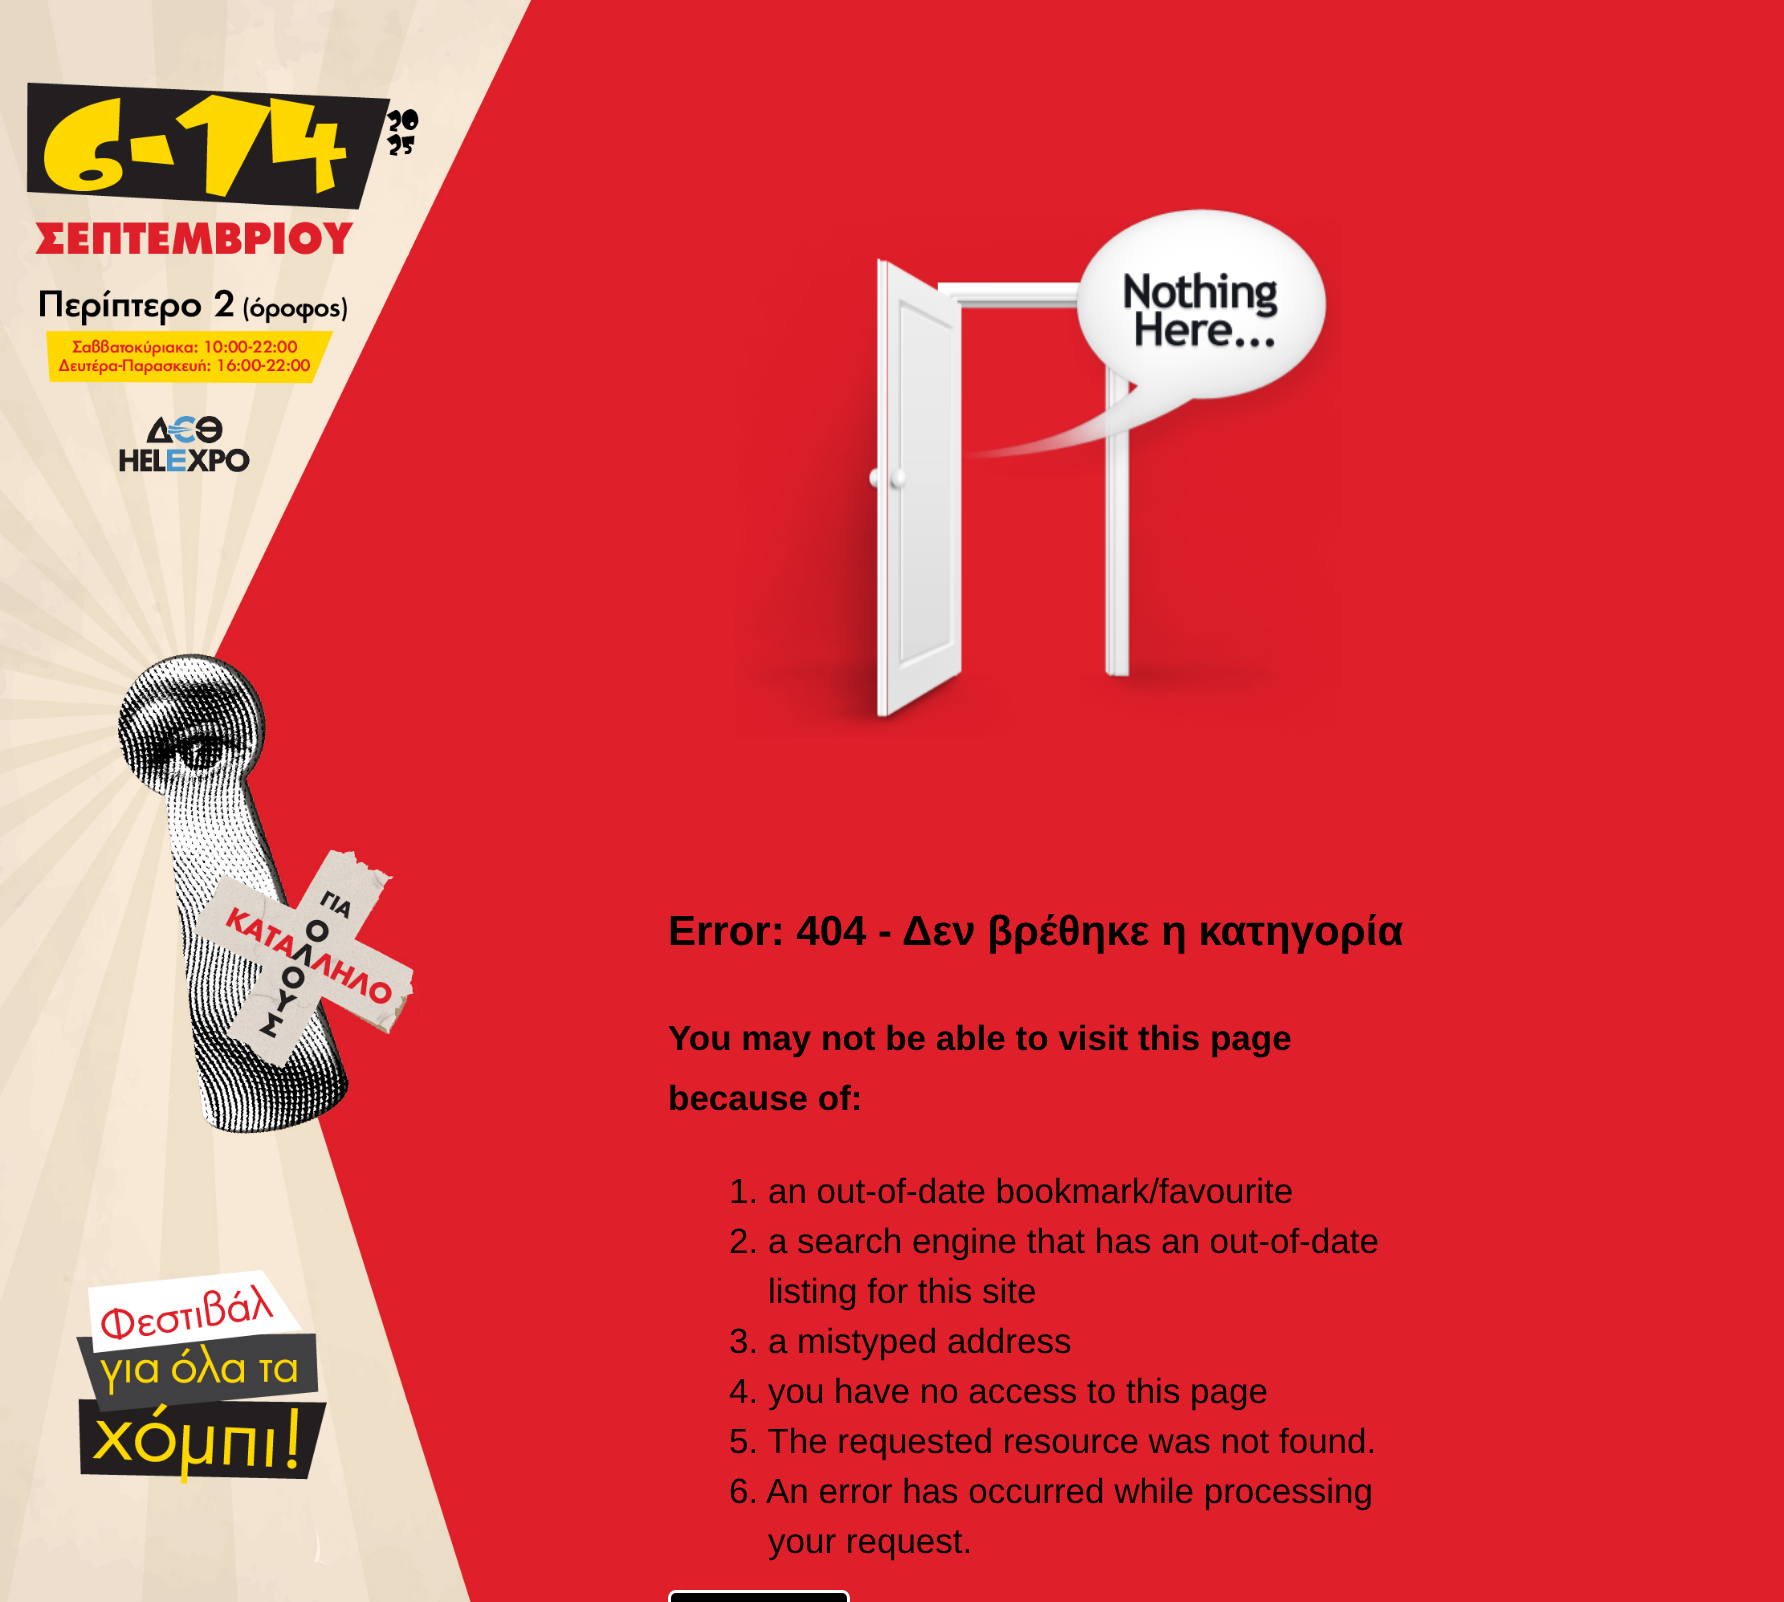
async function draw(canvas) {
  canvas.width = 1784;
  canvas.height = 1602;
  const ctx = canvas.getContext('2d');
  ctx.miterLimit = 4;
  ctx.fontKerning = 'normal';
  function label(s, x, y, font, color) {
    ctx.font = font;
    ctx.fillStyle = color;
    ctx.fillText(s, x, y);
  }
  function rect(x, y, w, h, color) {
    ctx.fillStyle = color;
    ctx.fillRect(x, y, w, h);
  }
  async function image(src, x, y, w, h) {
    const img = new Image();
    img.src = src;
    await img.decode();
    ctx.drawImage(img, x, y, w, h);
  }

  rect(0, 0, 1784, 1602, '#fff');
  await image('assets/img1.png', 0, 0, 1784, 1602);
  await image('assets/img2.png', 735, 208, 607, 530);
  label('Error: 404', 668, 945, 'bold 42px Liberation Sans', '#000');
  label('- Δεν βρέθηκε η κατηγορία', 878, 945, 'bold 42px Liberation Sans', '#000');
  label('You may not be able to visit this page', 668, 1050, 'bold 35px Liberation Sans', '#000');
  label('because of:', 668, 1110, 'bold 35px Liberation Sans', '#000');
  label('1. an out-of-date bookmark/favourite', 729, 1203, '35px Liberation Sans', '#000');
  label('2. a search engine that has an out-of-date', 729, 1253, '35px Liberation Sans', '#000');
  label('listing for this site', 768, 1303, '35px Liberation Sans', '#000');
  label('3. a mistyped address', 729, 1353, '35px Liberation Sans', '#000');
  label('4. you have no access to this page', 729, 1403, '35px Liberation Sans', '#000');
  label('5. The requested resource was not found.', 729, 1453, '35px Liberation Sans', '#000');
  label('6. An error has occurred while processing', 729, 1503, '35px Liberation Sans', '#000');
  label('your request.', 768, 1553, '35px Liberation Sans', '#000');
  ctx.save();
  ctx.beginPath();
  ctx.roundRect(668, 1590, 182, 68, 8);
  ctx.clip();
  rect(668, 1593, 182, 9, '#000');
  ctx.restore();
  ctx.beginPath();
  ctx.roundRect(669.5, 1591.5, 179, 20, 6.5);
  ctx.strokeStyle = '#fff';
  ctx.lineWidth = 3;
  ctx.stroke();
}

draw(document.querySelector('canvas'));
